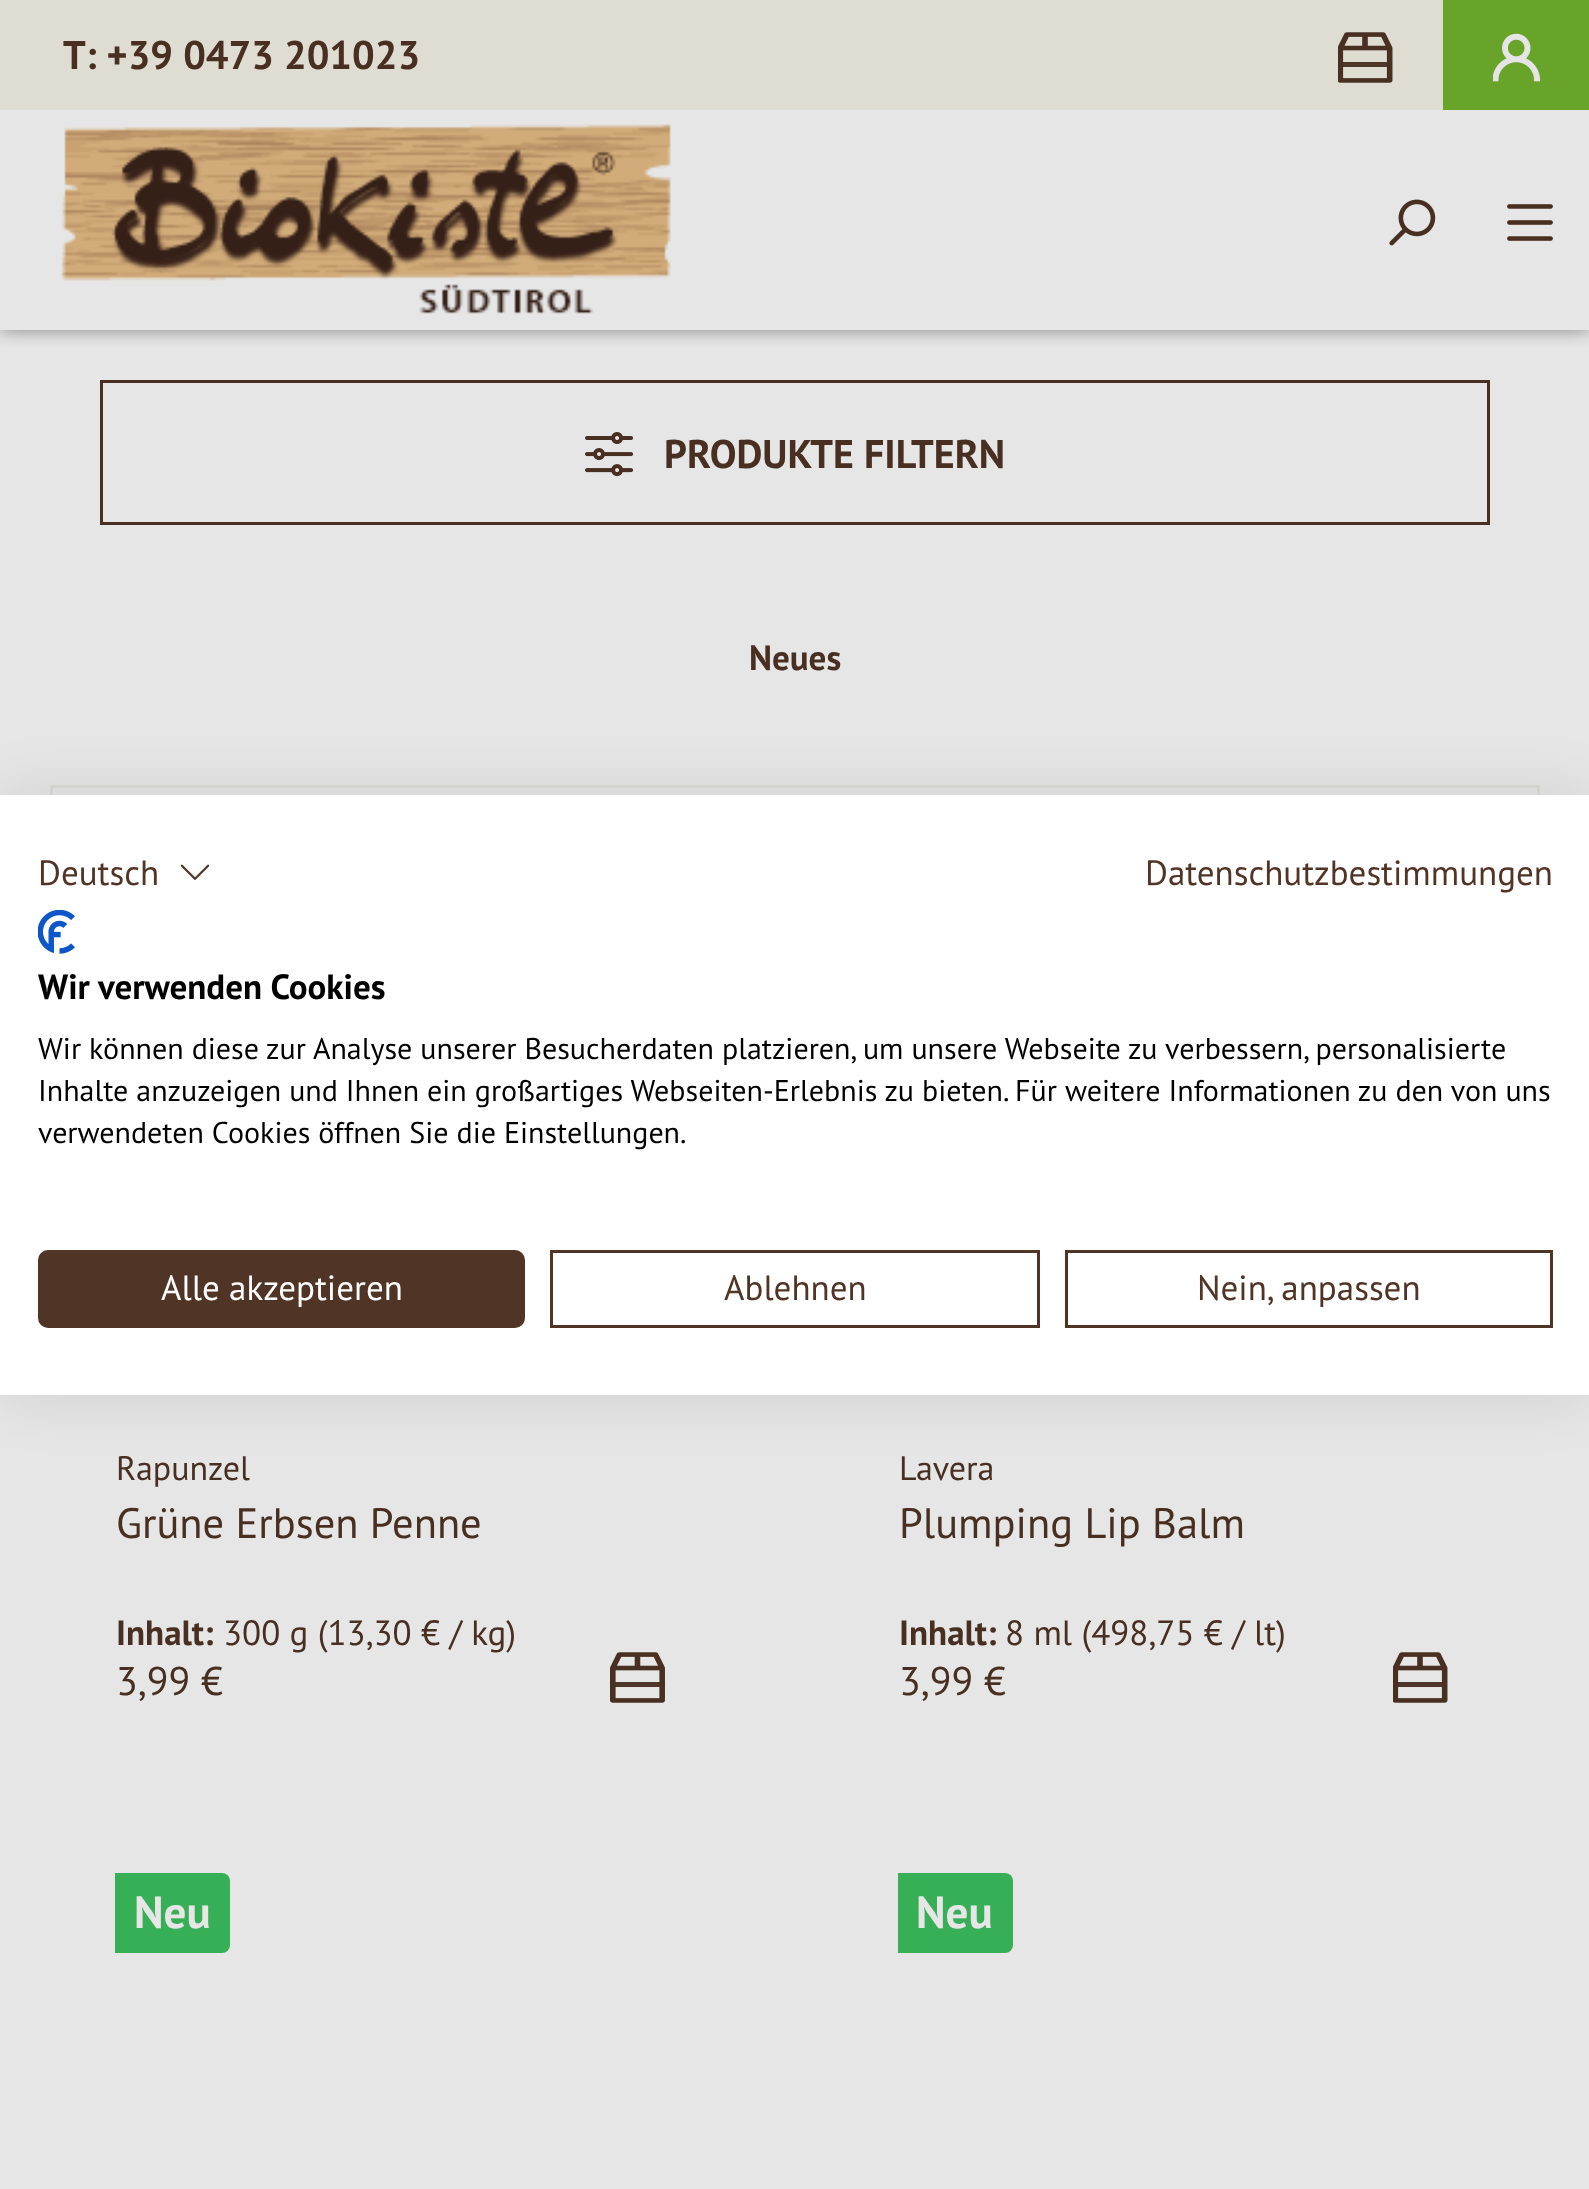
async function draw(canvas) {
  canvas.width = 1589;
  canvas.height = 2189;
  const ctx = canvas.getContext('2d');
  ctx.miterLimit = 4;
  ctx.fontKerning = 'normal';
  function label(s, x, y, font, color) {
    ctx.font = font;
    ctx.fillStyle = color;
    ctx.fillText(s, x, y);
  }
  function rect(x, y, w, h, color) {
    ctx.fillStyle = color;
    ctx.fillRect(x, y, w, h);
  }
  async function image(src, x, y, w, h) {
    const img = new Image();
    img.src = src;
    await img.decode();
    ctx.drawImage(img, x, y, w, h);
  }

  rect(0, 0, 1589, 2189, '#e6e6e6');
  ctx.save();
  ctx.beginPath();
  ctx.rect(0, 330, 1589, 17);
  ctx.clip();
  ctx.fillStyle = '#4a4a4a9e';
  ctx.filter = 'blur(9px)';
  ctx.beginPath();
  ctx.rect(0, 0, 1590, 330);
  ctx.fill();
  ctx.filter = 'none';
  ctx.restore();
  rect(0, 0, 1443, 110, '#dfdcd1');
  label('T: +39 0473 201023', 63, 69, 'bold 40px PT Sans', '#482f22');
  await image('assets/img1.png', 1338, 32, 55, 51);
  rect(1443, 0, 146, 110, '#68a429');
  await image('assets/img2.png', 1493, 33, 47, 49);
  await image('assets/img3.png', 61, 124, 610, 190);
  await image('assets/img4.png', 1389, 199, 47, 47);
  await image('assets/img5.png', 1507, 204, 46, 37);
  ctx.strokeStyle = '#482f22';
  ctx.lineWidth = 3;
  ctx.strokeRect(101.5, 381.5, 1387, 142);
  await image('assets/img6.png', 585, 432, 48, 45);
  label('PRODUKTE FILTERN', 664, 468, 'bold 40px PT Sans', '#482f22');
  label('Neues', 749, 670, 'bold 35px PT Sans', '#482f22');
  ctx.strokeStyle = '#ddddd8';
  ctx.strokeRect(51.5, 786.5, 1487, 97);
  label('Rapunzel', 116, 1480, '34px PT Sans', '#482f22');
  label('Grüne Erbsen Penne', 116, 1538, '42.5px PT Sans', '#482f22');
  label('Inhalt:', 116, 1645, 'bold 35px PT Sans', '#482f22');
  label('300 g (13,30 € / kg)', 223, 1645, '35px PT Sans', '#482f22');
  label('3,99 €', 116, 1695, '40px PT Sans', '#482f22');
  await image('assets/img7.png', 610, 1652, 55, 51);
  label('Lavera', 899, 1480, '34px PT Sans', '#482f22');
  label('Plumping Lip Balm', 899, 1538, '42.5px PT Sans', '#482f22');
  label('Inhalt:', 899, 1645, 'bold 35px PT Sans', '#482f22');
  label('8 ml (498,75 € / lt)', 1005, 1645, '35px PT Sans', '#482f22');
  label('3,99 €', 899, 1695, '40px PT Sans', '#482f22');
  await image('assets/img8.png', 1393, 1652, 55, 51);
  ctx.fillStyle = '#36af57';
  ctx.beginPath();
  ctx.roundRect(115, 1873, 115, 80, [0, 8, 8, 0]);
  ctx.fill();
  label('Neu', 134, 1928, 'bold 45px PT Sans', '#e6e6e6');
  ctx.fillStyle = '#36af57';
  ctx.beginPath();
  ctx.roundRect(898, 1873, 115, 80, [0, 8, 8, 0]);
  ctx.fill();
  label('Neu', 916, 1928, 'bold 45px PT Sans', '#e6e6e6');
  ctx.fillStyle = '#0000001a';
  ctx.filter = 'blur(30px)';
  ctx.beginPath();
  ctx.rect(0, 795, 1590, 600);
  ctx.fill();
  ctx.filter = 'none';
  rect(0, 795, 1589, 600, '#fff');
  label('Deutsch', 38, 885, '35px PT Sans', '#503426');
  await image('assets/img9.png', 180, 864, 30, 16);
  label('Datenschutzbestimmungen', 1145, 885, '35px PT Sans', '#503426');
  await image('assets/img10.png', 38, 910, 37, 44);
  label('Wir verwenden Cookies', 38, 999, 'bold 35px PT Sans', '#000');
  label('Wir können diese zur Analyse unserer Besucherdaten platzieren, um unsere Webseite zu verbessern, personalisierte', 38, 1059, '30px PT Sans', '#000');
  label('Inhalte anzuzeigen und Ihnen ein großartiges Webseiten-Erlebnis zu bieten. Für weitere Informationen zu den von uns', 38, 1101, '30px PT Sans', '#000');
  label('verwendeten Cookies öffnen Sie die Einstellungen.', 38, 1143, '30px PT Sans', '#000');
  ctx.fillStyle = '#503426';
  ctx.beginPath();
  ctx.roundRect(39.5, 1251.5, 484, 75, 8.5);
  ctx.fill();
  ctx.strokeStyle = '#503426';
  ctx.stroke();
  label('Alle akzeptieren', 161, 1300, '35px PT Sans', '#fff');
  ctx.strokeRect(551.5, 1251.5, 487, 75);
  label('Ablehnen', 724, 1300, '35px PT Sans', '#503426');
  ctx.strokeRect(1066.5, 1251.5, 485, 75);
  label('Nein, anpassen', 1197, 1300, '35px PT Sans', '#503426');
}

draw(document.querySelector('canvas'));
